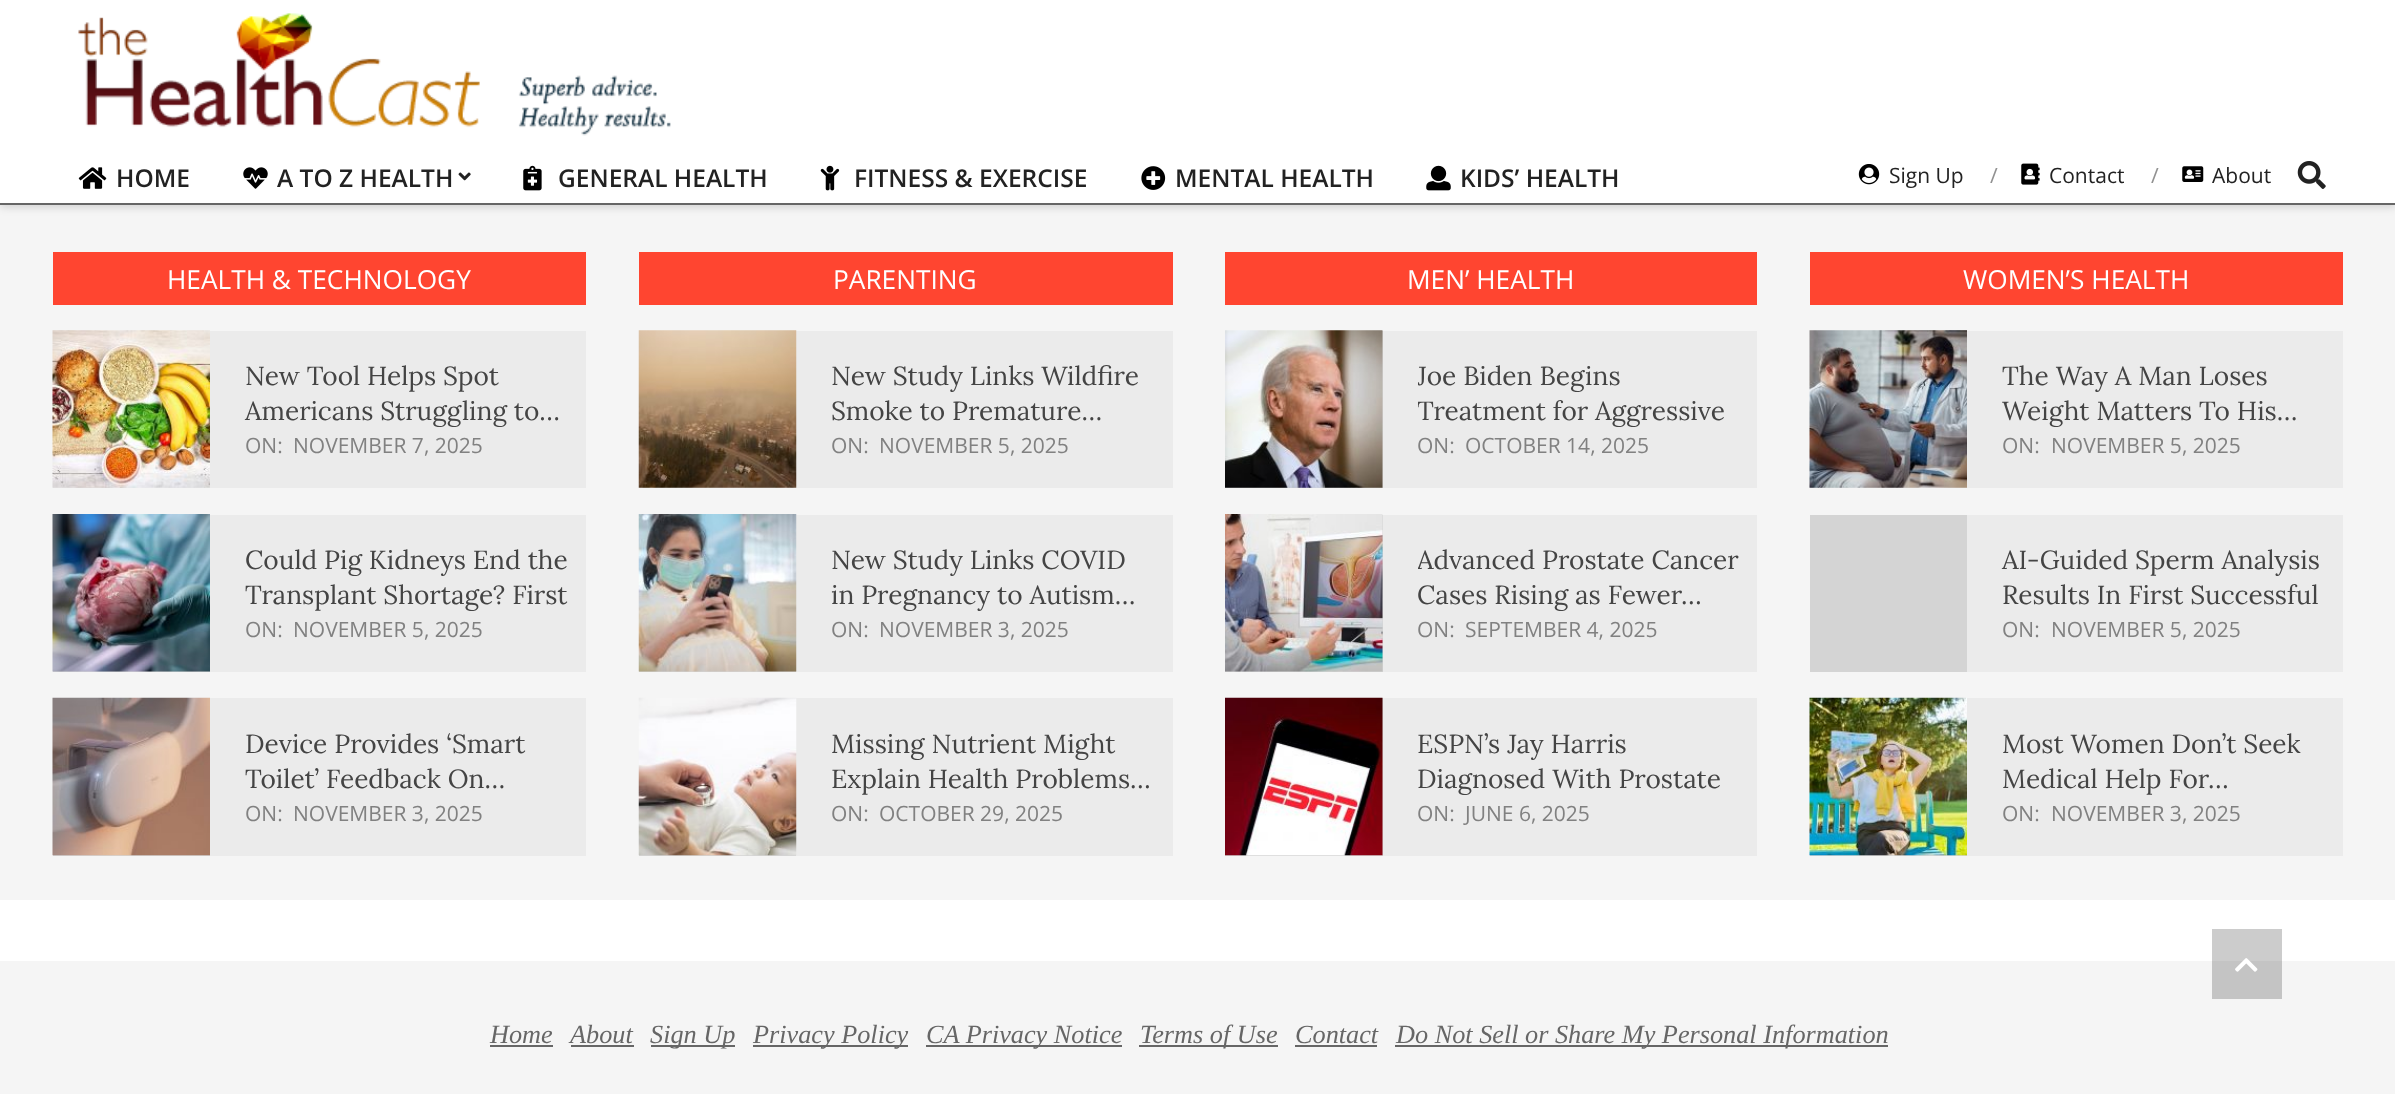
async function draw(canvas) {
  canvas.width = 2395;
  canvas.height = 1094;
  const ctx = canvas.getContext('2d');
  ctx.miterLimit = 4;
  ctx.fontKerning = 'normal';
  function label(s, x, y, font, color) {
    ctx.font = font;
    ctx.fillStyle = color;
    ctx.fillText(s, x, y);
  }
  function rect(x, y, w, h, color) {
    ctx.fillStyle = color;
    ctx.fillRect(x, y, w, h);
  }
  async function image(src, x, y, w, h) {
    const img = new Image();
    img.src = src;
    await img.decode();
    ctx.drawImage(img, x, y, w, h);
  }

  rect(0, 0, 2395, 1094, '#fff');
  rect(2212, 929, 70, 32, '#ccc');
  rect(0, 205, 2395, 695, '#f5f5f5');
  ctx.fillStyle = '#00000026';
  ctx.filter = 'blur(4.5px)';
  ctx.beginPath();
  ctx.rect(0, 2, 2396, 205);
  ctx.fill();
  ctx.filter = 'none';
  rect(0, 0, 2395, 203, '#fff');
  rect(0, 203, 2395, 2, '#666');
  await image('assets/img1.png', 78, 13, 593, 123);
  await image('assets/img2.png', 78, 167, 29, 22);
  label('HOME', 116, 187, '600 24.5px Open Sans', '#222');
  await image('assets/img3.png', 243, 167, 25, 22);
  label('A TO Z HEALTH', 277, 187, '600 24.5px Open Sans', '#222');
  await image('assets/img4.png', 458, 172, 13, 9);
  await image('assets/img5.png', 523, 165, 19, 26);
  label('GENERAL HEALTH', 558, 187, '600 24.5px Open Sans', '#222');
  await image('assets/img6.png', 820, 165, 20, 26);
  label('FITNESS & EXERCISE', 854, 187, '600 24.5px Open Sans', '#222');
  await image('assets/img7.png', 1141, 166, 25, 24);
  label('MENTAL HEALTH', 1175, 187, '600 24.5px Open Sans', '#222');
  await image('assets/img8.png', 1426, 165, 25, 26);
  label('KIDS’ HEALTH', 1460, 187, '600 24.5px Open Sans', '#222');
  await image('assets/img9.png', 1858, 164, 22, 21);
  label('Sign Up', 1889, 183, '21px Open Sans', '#222');
  label('/', 1990, 183, '21px Open Sans', '#919191');
  await image('assets/img10.png', 2021, 163, 19, 22);
  label('Contact', 2049, 183, '21px Open Sans', '#222');
  label('/', 2151, 183, '21px Open Sans', '#919191');
  await image('assets/img11.png', 2182, 166, 22, 16);
  label('About', 2212, 183, '21px Open Sans', '#222');
  await image('assets/img12.png', 2297, 161, 29, 28);
  rect(53, 252, 533, 53, '#ff4530');
  label('HEALTH & TECHNOLOGY', 167, 289, '26.25px Open Sans', '#fff');
  rect(53, 331, 533, 157, '#ebebeb');
  await image('assets/img13.png', 52, 330, 158, 158);
  label('New Tool Helps Spot', 245, 385, '26.25px Lora', '#444');
  label('Americans Struggling to…', 245, 420, '26.25px Lora', '#444');
  label('ON:', 245, 453, '21px Open Sans', '#818181');
  label('NOVEMBER 7, 2025', 293, 453, '21px Open Sans', '#818181');
  rect(210, 515, 376, 157, '#ebebeb');
  rect(53, 671, 157, 1, '#d4d4d4');
  await image('assets/img14.png', 52, 514, 158, 158);
  label('Could Pig Kidneys End the', 245, 569, '26.25px Lora', '#444');
  label('Transplant Shortage? First', 245, 604, '26.25px Lora', '#444');
  label('ON:', 245, 637, '21px Open Sans', '#818181');
  label('NOVEMBER 5, 2025', 293, 637, '21px Open Sans', '#818181');
  rect(210, 698, 376, 158, '#ebebeb');
  rect(53, 855, 157, 1, '#d4d4d4');
  await image('assets/img15.png', 52, 697, 158, 159);
  label('Device Provides ‘Smart', 245, 753, '26.25px Lora', '#444');
  label('Toilet’ Feedback On…', 245, 788, '26.25px Lora', '#444');
  label('ON:', 245, 821, '21px Open Sans', '#818181');
  label('NOVEMBER 3, 2025', 293, 821, '21px Open Sans', '#818181');
  rect(639, 252, 534, 53, '#ff4530');
  label('PARENTING', 833, 289, '26.25px Open Sans', '#fff');
  rect(639, 331, 534, 157, '#ebebeb');
  await image('assets/img16.png', 638, 330, 159, 158);
  label('New Study Links Wildfire', 831, 385, '26.25px Lora', '#444');
  label('Smoke to Premature…', 831, 420, '26.25px Lora', '#444');
  label('ON:', 831, 453, '21px Open Sans', '#818181');
  label('NOVEMBER 5, 2025', 879, 453, '21px Open Sans', '#818181');
  rect(796, 515, 377, 157, '#ebebeb');
  rect(639, 671, 157, 1, '#d4d4d4');
  await image('assets/img17.png', 638, 514, 159, 158);
  label('New Study Links COVID', 831, 569, '26.25px Lora', '#444');
  label('in Pregnancy to Autism…', 831, 604, '26.25px Lora', '#444');
  label('ON:', 831, 637, '21px Open Sans', '#818181');
  label('NOVEMBER 3, 2025', 879, 637, '21px Open Sans', '#818181');
  rect(796, 698, 377, 158, '#ebebeb');
  rect(639, 855, 157, 1, '#d4d4d4');
  await image('assets/img18.png', 638, 697, 159, 159);
  label('Missing Nutrient Might', 831, 753, '26.25px Lora', '#444');
  label('Explain Health Problems…', 831, 788, '26.25px Lora', '#444');
  label('ON:', 831, 821, '21px Open Sans', '#818181');
  label('OCTOBER 29, 2025', 879, 821, '21px Open Sans', '#818181');
  rect(1225, 252, 532, 53, '#ff4530');
  label('MEN’ HEALTH', 1407, 289, '26.25px Open Sans', '#fff');
  rect(1383, 331, 374, 157, '#ebebeb');
  rect(1225, 331, 158, 157, '#d4d4d4');
  await image('assets/img19.png', 1225, 330, 158, 158);
  ctx.save();
  ctx.beginPath();
  ctx.rect(1418, 359, 322, 70);
  ctx.clip();
  label('Joe Biden Begins', 1417, 385, '26.25px Lora', '#444');
  label('Treatment for Aggressive', 1417, 420, '26.25px Lora', '#444');
  ctx.restore();
  label('ON:', 1417, 453, '21px Open Sans', '#818181');
  label('OCTOBER 14, 2025', 1465, 453, '21px Open Sans', '#818181');
  rect(1383, 515, 374, 157, '#ebebeb');
  rect(1225, 515, 158, 157, '#d4d4d4');
  await image('assets/img20.png', 1225, 514, 158, 158);
  ctx.save();
  ctx.beginPath();
  ctx.rect(1418, 543, 322, 70);
  ctx.clip();
  label('Advanced Prostate Cancer', 1417, 569, '26.25px Lora', '#444');
  ctx.restore();
  label('Cases Rising as Fewer…', 1417, 604, '26.25px Lora', '#444');
  label('ON:', 1417, 637, '21px Open Sans', '#818181');
  label('SEPTEMBER 4, 2025', 1465, 637, '21px Open Sans', '#818181');
  rect(1383, 698, 374, 158, '#ebebeb');
  rect(1225, 698, 158, 158, '#d4d4d4');
  await image('assets/img21.png', 1225, 697, 158, 159);
  label('ESPN’s Jay Harris', 1417, 753, '26.25px Lora', '#444');
  label('Diagnosed With Prostate', 1417, 788, '26.25px Lora', '#444');
  label('ON:', 1417, 821, '21px Open Sans', '#818181');
  label('JUNE 6, 2025', 1465, 821, '21px Open Sans', '#818181');
  rect(1810, 252, 533, 53, '#ff4530');
  label('WOMEN’S HEALTH', 1963, 289, '26.25px Open Sans', '#fff');
  rect(1810, 331, 533, 157, '#ebebeb');
  await image('assets/img22.png', 1809, 330, 158, 158);
  label('The Way A Man Loses', 2002, 385, '26.25px Lora', '#444');
  label('Weight Matters To His…', 2002, 420, '26.25px Lora', '#444');
  label('ON:', 2002, 453, '21px Open Sans', '#818181');
  label('NOVEMBER 5, 2025', 2051, 453, '21px Open Sans', '#818181');
  rect(1967, 515, 376, 157, '#ebebeb');
  rect(1810, 515, 157, 157, '#d4d4d4');
  label('AI-Guided Sperm Analysis', 2002, 569, '26.25px Lora', '#444');
  label('Results In First Successful', 2002, 604, '26.25px Lora', '#444');
  label('ON:', 2002, 637, '21px Open Sans', '#818181');
  label('NOVEMBER 5, 2025', 2051, 637, '21px Open Sans', '#818181');
  rect(1967, 698, 376, 158, '#ebebeb');
  rect(1810, 855, 157, 1, '#d4d4d4');
  await image('assets/img23.png', 1809, 697, 158, 159);
  label('Most Women Don’t Seek', 2002, 753, '26.25px Lora', '#444');
  label('Medical Help For…', 2002, 788, '26.25px Lora', '#444');
  label('ON:', 2002, 821, '21px Open Sans', '#818181');
  label('NOVEMBER 3, 2025', 2051, 821, '21px Open Sans', '#818181');
  rect(0, 961, 2395, 133, '#f5f5f5');
  rect(2212, 961, 70, 38, '#c4c4c4');
  label('Home', 490, 1043, 'italic 26.25px Liberation Serif', '#666');
  rect(490, 1045, 63, 2, '#666');
  label('About', 570, 1043, 'italic 26.25px Liberation Serif', '#666');
  rect(571, 1045, 63, 2, '#666');
  rect(651, 1045, 84, 2, '#666');
  label('Sign Up', 650, 1043, 'italic 26.25px Liberation Serif', '#666');
  rect(753, 1045, 155, 2, '#666');
  label('Privacy Policy', 753, 1043, 'italic 26.25px Liberation Serif', '#666');
  rect(926, 1045, 196, 2, '#666');
  label('CA Privacy Notice', 926, 1043, 'italic 26.25px Liberation Serif', '#666');
  rect(1139, 1045, 139, 2, '#666');
  label('Terms of Use', 1140, 1043, 'italic 26.25px Liberation Serif', '#666');
  label('Contact', 1295, 1043, 'italic 26.25px Liberation Serif', '#666');
  rect(1295, 1045, 82, 2, '#666');
  rect(1395, 1045, 493, 2, '#666');
  label('Do Not Sell or Share My Personal Information', 1396, 1043, 'italic 26.25px Liberation Serif', '#666');
  await image('assets/img24.png', 2235, 958, 23, 14);
}

draw(document.querySelector('canvas'));
